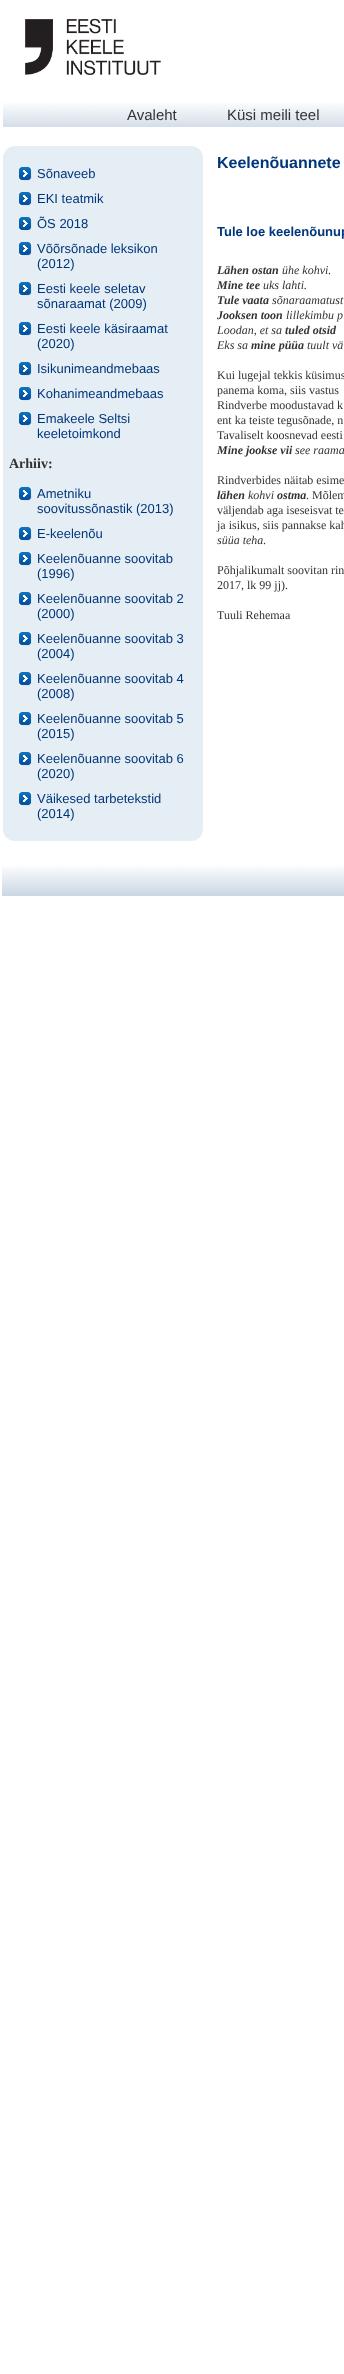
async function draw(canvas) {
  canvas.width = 344;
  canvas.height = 2374;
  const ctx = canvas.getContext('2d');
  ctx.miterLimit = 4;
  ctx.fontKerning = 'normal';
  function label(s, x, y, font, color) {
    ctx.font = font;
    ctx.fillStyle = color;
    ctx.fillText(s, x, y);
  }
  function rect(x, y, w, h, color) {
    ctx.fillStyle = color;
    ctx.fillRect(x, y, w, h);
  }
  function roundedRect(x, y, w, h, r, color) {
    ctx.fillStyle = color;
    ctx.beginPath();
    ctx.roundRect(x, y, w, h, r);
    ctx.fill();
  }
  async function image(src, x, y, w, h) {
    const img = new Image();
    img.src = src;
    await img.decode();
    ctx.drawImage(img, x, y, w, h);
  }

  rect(0, 0, 344, 2374, '#fff');
  await image('assets/img1.png', 25, 18, 136, 57);
  await image('assets/img2.png', 3, 103, 341, 24);
  label('Avaleht', 127, 120, '15px Liberation Sans', '#333');
  label('Küsi meili teel', 227, 120, '15px Liberation Sans', '#333');
  roundedRect(3, 146, 200, 695, 12, '#e5eef4');
  await image('assets/img3.png', 19, 167, 13, 14);
  label('Sõnaveeb', 37, 178, '13px Liberation Sans', '#00367c');
  await image('assets/img3.png', 19, 192, 13, 14);
  label('EKI teatmik', 37, 203, '13px Liberation Sans', '#00367c');
  await image('assets/img3.png', 19, 217, 13, 14);
  label('ÕS 2018', 37, 228, '13px Liberation Sans', '#00367c');
  await image('assets/img3.png', 19, 242, 13, 14);
  label('Võõrsõnade leksikon', 37, 253, '13px Liberation Sans', '#00367c');
  label('(2012)', 37, 268, '13px Liberation Sans', '#00367c');
  await image('assets/img3.png', 19, 282, 13, 14);
  label('Eesti keele seletav', 37, 293, '13px Liberation Sans', '#00367c');
  label('sõnaraamat (2009)', 37, 308, '13px Liberation Sans', '#00367c');
  await image('assets/img3.png', 19, 322, 13, 14);
  label('Eesti keele käsiraamat', 37, 333, '13px Liberation Sans', '#00367c');
  label('(2020)', 37, 348, '13px Liberation Sans', '#00367c');
  await image('assets/img3.png', 19, 362, 13, 14);
  label('Isikunimeandmebaas', 37, 373, '13px Liberation Sans', '#00367c');
  await image('assets/img3.png', 19, 387, 13, 14);
  label('Kohanimeandmebaas', 37, 398, '13px Liberation Sans', '#00367c');
  await image('assets/img3.png', 19, 412, 13, 14);
  label('Emakeele Seltsi', 37, 423, '13px Liberation Sans', '#00367c');
  label('keeletoimkond', 37, 438, '13px Liberation Sans', '#00367c');
  label('Arhiiv:', 9, 468, 'bold 14px Liberation Serif', '#333');
  await image('assets/img3.png', 19, 487, 13, 14);
  label('Ametniku', 37, 498, '13px Liberation Sans', '#00367c');
  label('soovitussõnastik (2013)', 37, 513, '13px Liberation Sans', '#00367c');
  await image('assets/img3.png', 19, 527, 13, 14);
  label('E-keelenõu', 37, 538, '13px Liberation Sans', '#00367c');
  await image('assets/img3.png', 19, 552, 13, 14);
  label('Keelenõuanne soovitab', 37, 563, '13px Liberation Sans', '#00367c');
  label('(1996)', 37, 578, '13px Liberation Sans', '#00367c');
  await image('assets/img3.png', 19, 592, 13, 14);
  label('Keelenõuanne soovitab 2', 37, 603, '13px Liberation Sans', '#00367c');
  label('(2000)', 37, 618, '13px Liberation Sans', '#00367c');
  await image('assets/img3.png', 19, 632, 13, 14);
  label('Keelenõuanne soovitab 3', 37, 643, '13px Liberation Sans', '#00367c');
  label('(2004)', 37, 658, '13px Liberation Sans', '#00367c');
  await image('assets/img3.png', 19, 672, 13, 14);
  label('Keelenõuanne soovitab 4', 37, 683, '13px Liberation Sans', '#00367c');
  label('(2008)', 37, 698, '13px Liberation Sans', '#00367c');
  await image('assets/img3.png', 19, 712, 13, 14);
  label('Keelenõuanne soovitab 5', 37, 723, '13px Liberation Sans', '#00367c');
  label('(2015)', 37, 738, '13px Liberation Sans', '#00367c');
  await image('assets/img3.png', 19, 752, 13, 14);
  label('Keelenõuanne soovitab 6', 37, 763, '13px Liberation Sans', '#00367c');
  label('(2020)', 37, 778, '13px Liberation Sans', '#00367c');
  await image('assets/img3.png', 19, 792, 13, 14);
  label('Väikesed tarbetekstid', 37, 803, '13px Liberation Sans', '#00367c');
  label('(2014)', 37, 818, '13px Liberation Sans', '#00367c');
  label('Keelenõuannete', 217, 168, 'bold 16px Liberation Sans', '#00367c');
  label('Tule loe keelenõunup', 217, 236, 'bold 13px Liberation Sans', '#00367c');
  label('Lähen ostan', 217, 274, 'italic bold 12px Liberation Serif', '#333');
  label('ühe kohvi.', 282, 274, 'italic 12px Liberation Serif', '#333');
  label('Mine tee', 217, 289, 'italic bold 12px Liberation Serif', '#333');
  label('uks lahti.', 263, 289, 'italic 12px Liberation Serif', '#333');
  label('Tule vaata', 217, 304, 'italic bold 12px Liberation Serif', '#333');
  label('sõnaraamatust', 272, 304, 'italic 12px Liberation Serif', '#333');
  label('Jooksen toon', 217, 319, 'italic bold 12px Liberation Serif', '#333');
  label('lillekimbu p', 286, 319, 'italic 12px Liberation Serif', '#333');
  label('Loodan, et sa', 217, 334, 'italic 12px Liberation Serif', '#333');
  label('tuled otsid', 285, 334, 'italic bold 12px Liberation Serif', '#333');
  label('Eks sa', 217, 349, 'italic 12px Liberation Serif', '#333');
  label('mine püüa', 251, 349, 'italic bold 12px Liberation Serif', '#333');
  label('tuult vä', 307, 349, 'italic 12px Liberation Serif', '#333');
  label('Kui lugejal tekkis küsimus', 217, 379, '12px Liberation Serif', '#333');
  label('panema koma, siis vastus', 217, 394, '12px Liberation Serif', '#333');
  label('Rindverbe moodustavad k', 217, 409, '12px Liberation Serif', '#333');
  label('ent ka teiste tegusõnade, n', 217, 424, '12px Liberation Serif', '#333');
  label('Tavaliselt koosnevad eesti', 217, 439, '12px Liberation Serif', '#333');
  label('Mine jookse vii', 217, 454, 'italic bold 12px Liberation Serif', '#333');
  label('see raama', 295, 454, 'italic 12px Liberation Serif', '#333');
  label('Rindverbides näitab esime', 217, 484, '12px Liberation Serif', '#333');
  label('lähen', 217, 499, 'italic bold 12px Liberation Serif', '#333');
  label('kohvi', 248, 499, 'italic 12px Liberation Serif', '#333');
  label('ostma', 277, 499, 'italic bold 12px Liberation Serif', '#333');
  label('. Mõlem', 306, 499, '12px Liberation Serif', '#333');
  label('väljendab aga iseseisvat te', 217, 514, '12px Liberation Serif', '#333');
  label('ja isikus, siis pannakse kah', 217, 529, '12px Liberation Serif', '#333');
  label('süüa teha', 217, 544, 'italic 12px Liberation Serif', '#333');
  label('.', 263, 544, '12px Liberation Serif', '#333');
  label('Põhjalikumalt soovitan rin', 217, 574, '12px Liberation Serif', '#333');
  label('2017, lk 99 jj).', 217, 589, '12px Liberation Serif', '#333');
  label('Tuuli Rehemaa', 217, 619, '12px Liberation Serif', '#333');
  await image('assets/img4.png', 2, 866, 342, 30);
}

draw(document.querySelector('canvas'));
